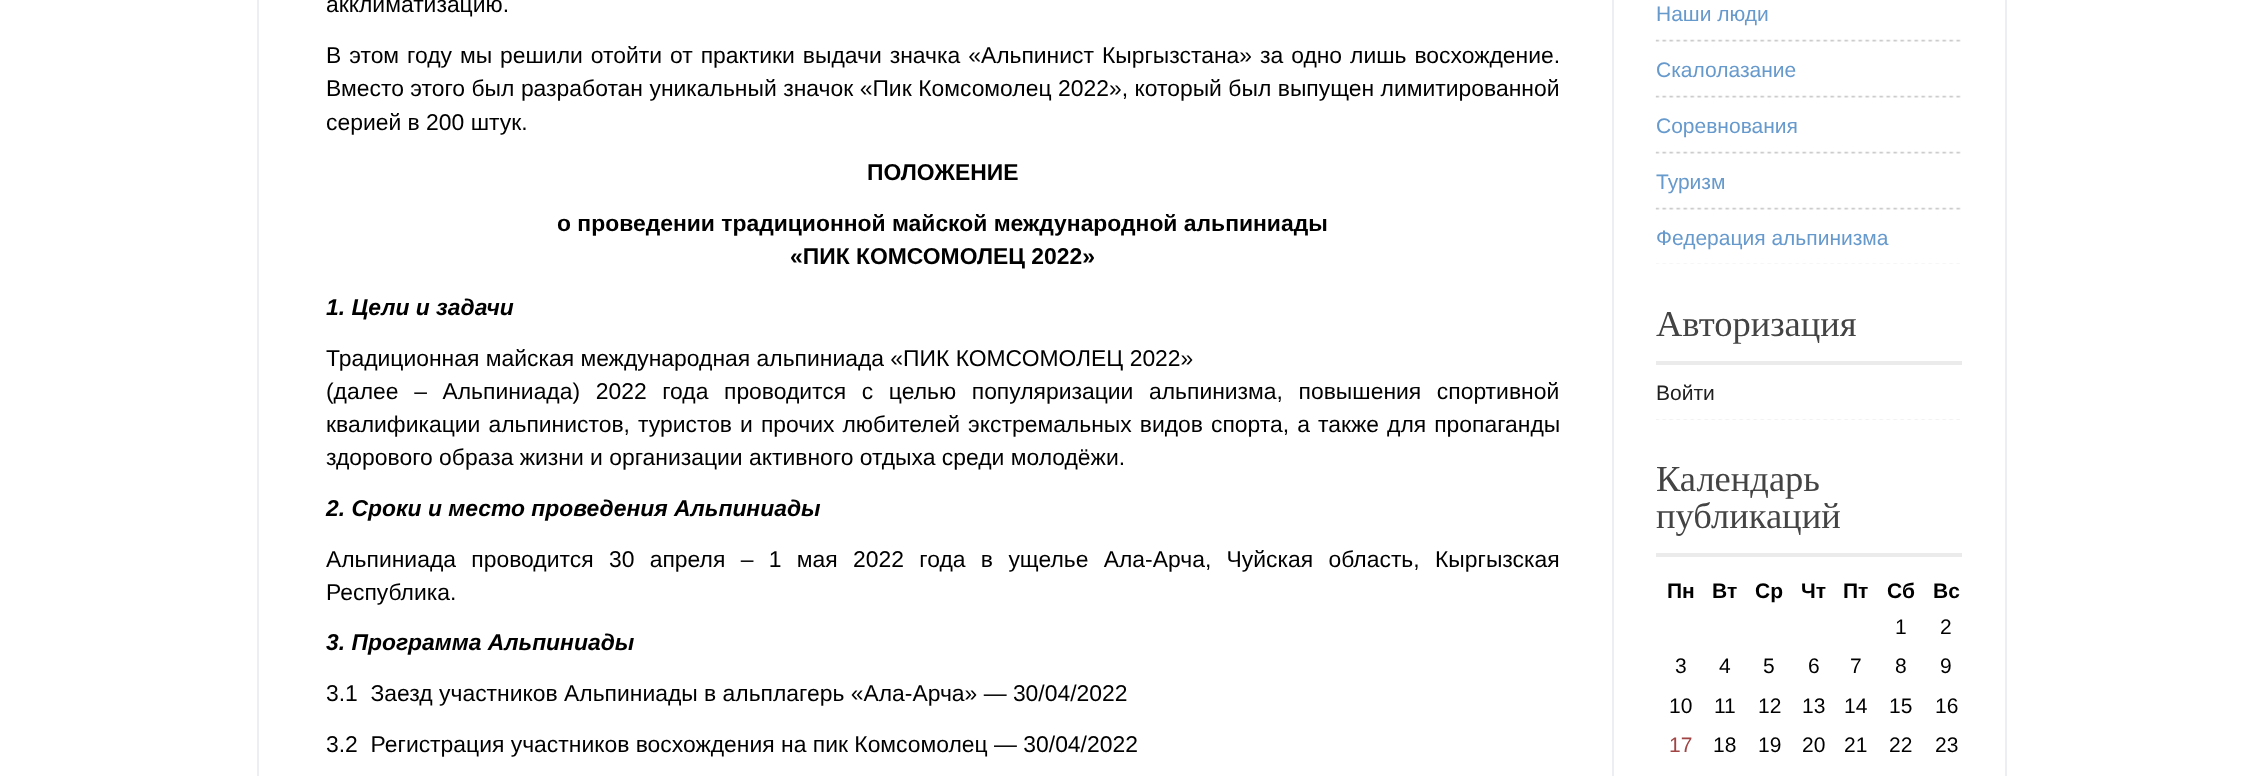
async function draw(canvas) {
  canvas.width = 2263;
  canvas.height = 776;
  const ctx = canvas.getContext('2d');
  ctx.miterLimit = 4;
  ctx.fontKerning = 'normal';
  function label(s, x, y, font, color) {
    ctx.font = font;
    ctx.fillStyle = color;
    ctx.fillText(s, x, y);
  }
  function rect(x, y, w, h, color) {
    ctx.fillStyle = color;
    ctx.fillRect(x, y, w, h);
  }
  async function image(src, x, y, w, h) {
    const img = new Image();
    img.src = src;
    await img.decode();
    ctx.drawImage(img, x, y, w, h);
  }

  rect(0, 0, 2263, 776, '#fff');
  ctx.strokeStyle = '#ebeff4';
  ctx.lineWidth = 2;
  ctx.strokeRect(258, -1, 1748, 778);
  rect(1612, 0, 2, 776, '#ebeff4');
  label('акклиматизацию.', 326, 12, '22.9px Liberation Sans', '#000');
  ctx.wordSpacing = '1.6px';
  label('В этом году мы решили отойти от практики выдачи значка «Альпинист Кыргызстана» за одно лишь восхождение.', 326, 63, '22.9px Liberation Sans', '#000');
  ctx.wordSpacing = '0.1px';
  label('Вместо этого был разработан уникальный значок «Пик Комсомолец 2022», который был выпущен лимитированной', 326, 96, '22.9px Liberation Sans', '#000');
  ctx.wordSpacing = '0px';
  label('серией в 200 штук.', 326, 130, '22.9px Liberation Sans', '#000');
  label('ПОЛОЖЕНИЕ', 867, 180, 'bold 22.9px Liberation Sans', '#000');
  label('о проведении традиционной майской международной альпиниады', 557, 231, 'bold 22.9px Liberation Sans', '#000');
  label('«ПИК КОМСОМОЛЕЦ 2022»', 790, 264, 'bold 22.9px Liberation Sans', '#000');
  label('1. Цели и задачи', 326, 315, 'italic bold 22.9px Liberation Sans', '#000');
  label('Традиционная майская международная альпиниада «ПИК КОМСОМОЛЕЦ 2022»', 326, 366, '22.9px Liberation Sans', '#000');
  ctx.wordSpacing = '9.25px';
  label('(далее – Альпиниада) 2022 года проводится с целью популяризации альпинизма, повышения спортивной', 326, 399, '22.9px Liberation Sans', '#000');
  ctx.wordSpacing = '1.7px';
  label('квалификации альпинистов, туристов и прочих любителей экстремальных видов спорта, а также для пропаганды', 326, 432, '22.9px Liberation Sans', '#000');
  ctx.wordSpacing = '0px';
  label('здорового образа жизни и организации активного отдыха среди молодёжи.', 326, 465, '22.9px Liberation Sans', '#000');
  label('2. Сроки и место проведения Альпиниады', 326, 516, 'italic bold 22.9px Liberation Sans', '#000');
  ctx.wordSpacing = '9px';
  label('Альпиниада проводится 30 апреля – 1 мая 2022 года в ущелье Ала-Арча, Чуйская область, Кыргызская', 326, 567, '22.9px Liberation Sans', '#000');
  ctx.wordSpacing = '0px';
  label('Республика.', 326, 600, '22.9px Liberation Sans', '#000');
  label('3. Программа Альпиниады', 326, 650, 'italic bold 22.9px Liberation Sans', '#000');
  label('3.1  Заезд участников Альпиниады в альплагерь «Ала-Арча» — 30/04/2022', 326, 701, '22.9px Liberation Sans', '#000');
  label('3.2  Регистрация участников восхождения на пик Комсомолец — 30/04/2022', 326, 752, '22.9px Liberation Sans', '#000');
  await image('assets/img1.png', 1655, 39, 306, 3);
  label('Наши люди', 1656, 21, '21px Liberation Sans', '#69c');
  await image('assets/img1.png', 1655, 95, 306, 3);
  label('Скалолазание', 1656, 77, '21px Liberation Sans', '#69c');
  await image('assets/img1.png', 1655, 151, 306, 3);
  label('Соревнования', 1656, 133, '21px Liberation Sans', '#69c');
  await image('assets/img1.png', 1655, 207, 306, 3);
  label('Туризм', 1656, 189, '21px Liberation Sans', '#69c');
  await image('assets/img2.png', 1656, 263, 304, 1);
  label('Федерация альпинизма', 1656, 245, '21px Liberation Sans', '#69c');
  rect(1656, 361, 306, 4, '#ebebeb');
  label('Авторизация', 1656, 336, '36.5px Liberation Serif', '#444');
  await image('assets/img3.png', 1656, 419, 304, 1);
  label('Войти', 1656, 400, '21px Liberation Sans', '#202020');
  rect(1656, 553, 306, 4, '#ebebeb');
  label('Календарь', 1656, 491, '36.5px Liberation Serif', '#444');
  label('публикаций', 1656, 528, '36.5px Liberation Serif', '#444');
  label('Пн', 1667, 598, 'bold 21px Liberation Sans', '#000');
  label('Вт', 1712, 598, 'bold 21px Liberation Sans', '#000');
  label('Ср', 1755, 598, 'bold 21px Liberation Sans', '#000');
  label('Чт', 1801, 598, 'bold 21px Liberation Sans', '#000');
  label('Пт', 1843, 598, 'bold 21px Liberation Sans', '#000');
  label('Сб', 1887, 598, 'bold 21px Liberation Sans', '#000');
  label('Вс', 1933, 598, 'bold 21px Liberation Sans', '#000');
  label('1', 1895, 634, '21px Liberation Sans', '#000');
  label('2', 1940, 634, '21px Liberation Sans', '#000');
  label('3', 1675, 673, '21px Liberation Sans', '#000');
  label('4', 1719, 673, '21px Liberation Sans', '#000');
  label('5', 1763, 673, '21px Liberation Sans', '#000');
  label('6', 1808, 673, '21px Liberation Sans', '#000');
  label('7', 1850, 673, '21px Liberation Sans', '#000');
  label('8', 1895, 673, '21px Liberation Sans', '#000');
  label('9', 1940, 673, '21px Liberation Sans', '#000');
  label('10', 1669, 713, '21px Liberation Sans', '#000');
  label('11', 1714, 713, '21px Liberation Sans', '#000');
  label('12', 1758, 713, '21px Liberation Sans', '#000');
  label('13', 1802, 713, '21px Liberation Sans', '#000');
  label('14', 1844, 713, '21px Liberation Sans', '#000');
  label('15', 1889, 713, '21px Liberation Sans', '#000');
  label('16', 1935, 713, '21px Liberation Sans', '#000');
  label('17', 1669, 752, '21px Liberation Sans', '#a04444');
  label('18', 1713, 752, '21px Liberation Sans', '#000');
  label('19', 1758, 752, '21px Liberation Sans', '#000');
  label('20', 1802, 752, '21px Liberation Sans', '#000');
  label('21', 1844, 752, '21px Liberation Sans', '#000');
  label('22', 1889, 752, '21px Liberation Sans', '#000');
  label('23', 1935, 752, '21px Liberation Sans', '#000');
}

draw(document.querySelector('canvas'));
